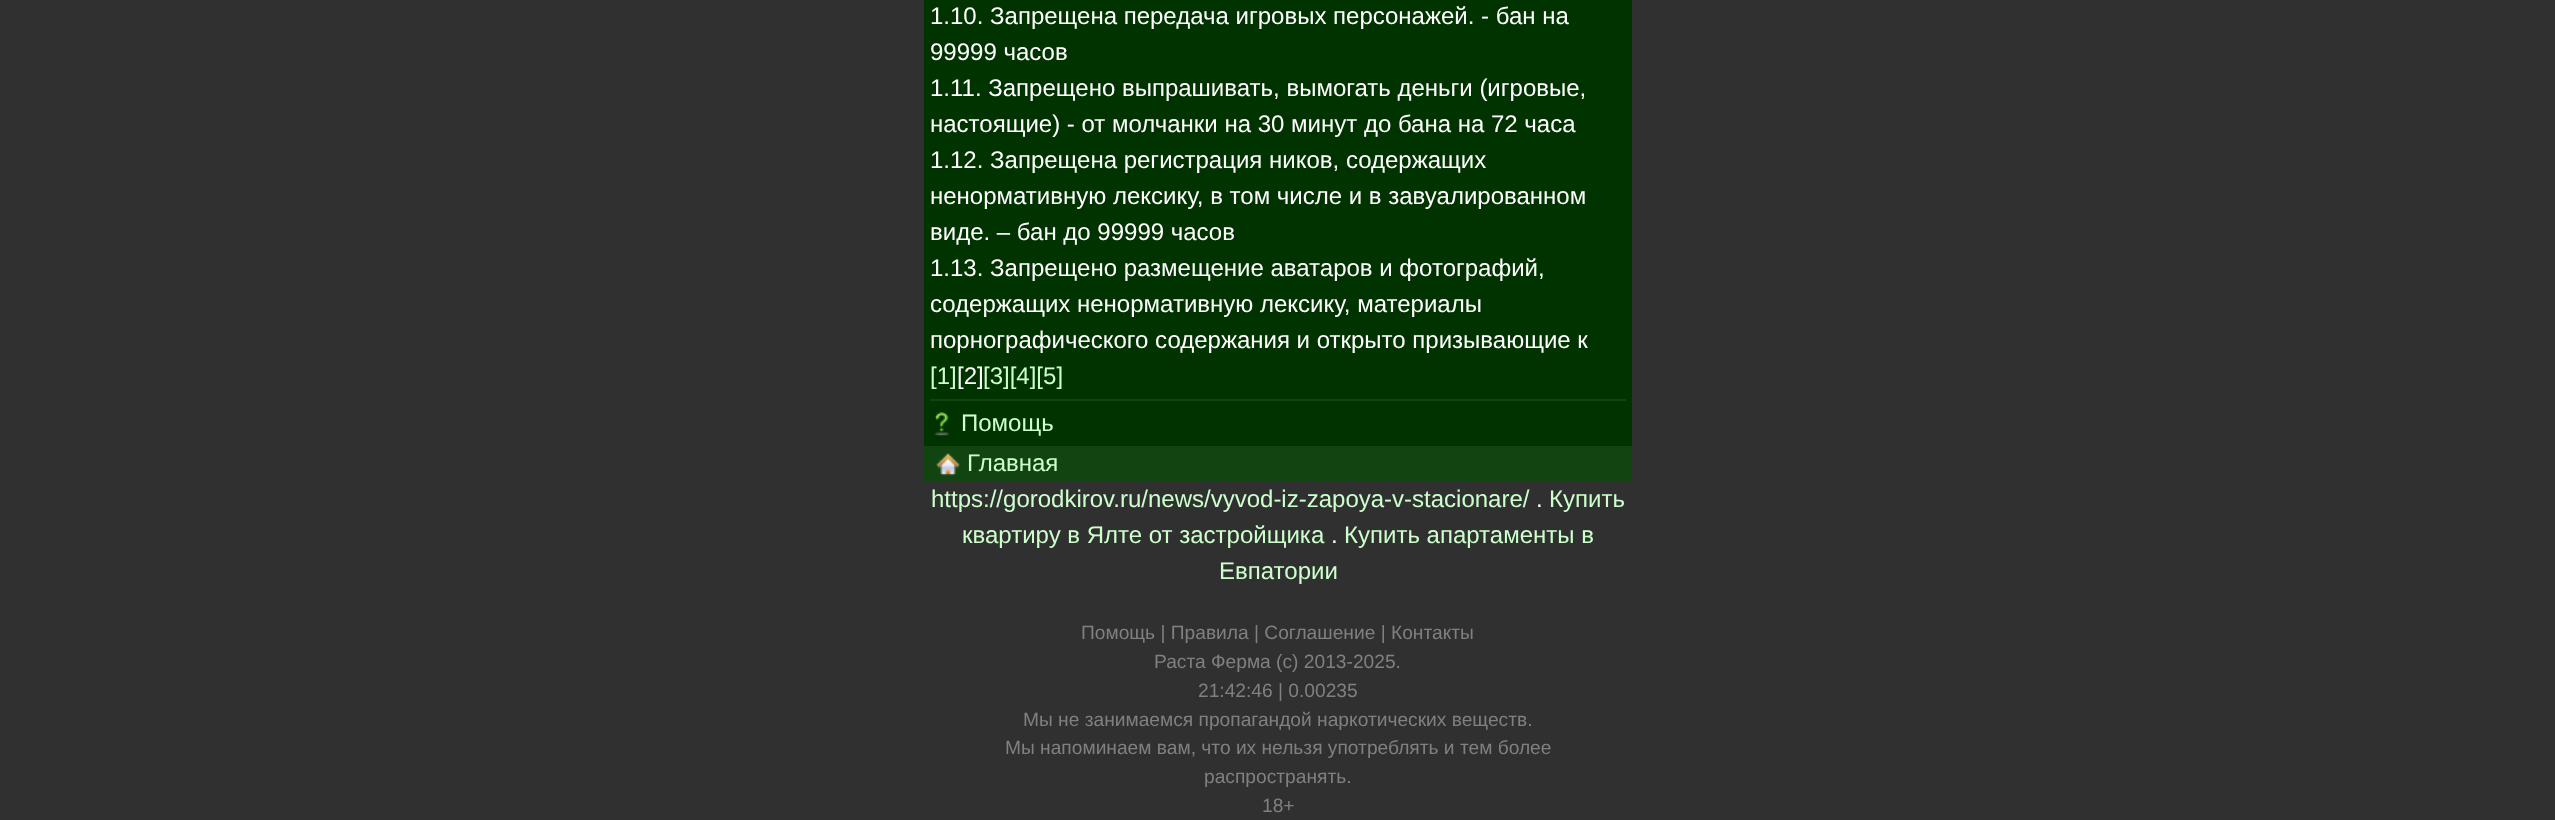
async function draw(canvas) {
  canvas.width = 2555;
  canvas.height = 820;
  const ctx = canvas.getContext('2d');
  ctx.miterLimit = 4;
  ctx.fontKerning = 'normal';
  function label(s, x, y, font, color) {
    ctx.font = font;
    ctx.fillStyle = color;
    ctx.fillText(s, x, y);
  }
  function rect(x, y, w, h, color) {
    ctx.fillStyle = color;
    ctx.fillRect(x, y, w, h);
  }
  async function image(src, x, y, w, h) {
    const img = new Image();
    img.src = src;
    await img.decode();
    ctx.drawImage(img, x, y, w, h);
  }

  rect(0, 0, 2555, 820, '#303030');
  rect(924, 0, 708, 446, '#030');
  label('1.10. Запрещена передача игровых персонажей. - бан на', 930, 24, '24px Liberation Sans', '#fff');
  label('99999 часов', 930, 60, '24px Liberation Sans', '#fff');
  label('1.11. Запрещено выпрашивать, вымогать деньги (игровые,', 930, 96, '24px Liberation Sans', '#fff');
  label('настоящие) - от молчанки на 30 минут до бана на 72 часа', 930, 132, '24px Liberation Sans', '#fff');
  label('1.12. Запрещена регистрация ников, содержащих', 930, 168, '24px Liberation Sans', '#fff');
  label('ненормативную лексику, в том числе и в завуалированном', 930, 204, '24px Liberation Sans', '#fff');
  label('виде. – бан до 99999 часов', 930, 240, '24px Liberation Sans', '#fff');
  label('1.13. Запрещено размещение аватаров и фотографий,', 930, 276, '24px Liberation Sans', '#fff');
  label('содержащих ненормативную лексику, материалы', 930, 312, '24px Liberation Sans', '#fff');
  label('порнографического содержания и открыто призывающие к', 930, 348, '24px Liberation Sans', '#fff');
  label('[1]', 930, 384, '24px Liberation Sans', '#cfc');
  label('[2]', 957, 384, '24px Liberation Sans', '#fff');
  label('[3][4][5]', 983, 384, '24px Liberation Sans', '#cfc');
  rect(930, 399, 696, 2, '#141');
  await image('assets/img1.png', 934, 412, 16, 24);
  label('Помощь', 961, 431, '24px Liberation Sans', '#cfc');
  rect(924, 446, 708, 36, '#141');
  await image('assets/img2.png', 936, 453, 24, 23);
  label('Главная', 967, 471, '24px Liberation Sans', '#cfc');
  label('https://gorodkirov.ru/news/vyvod-iz-zapoya-v-stacionare/', 931, 507, '24px Liberation Sans', '#cfc');
  label('.', 1536, 507, '24px Liberation Sans', '#fff');
  label('Купить', 1549, 507, '24px Liberation Sans', '#cfc');
  label('квартиру в Ялте от застройщика', 962, 543, '24px Liberation Sans', '#cfc');
  label('.', 1331, 543, '24px Liberation Sans', '#fff');
  label('Купить апартаменты в', 1344, 543, '24px Liberation Sans', '#cfc');
  label('Евпатории', 1219, 579, '24px Liberation Sans', '#cfc');
  label('Помощь | Правила | Соглашение | Контакты', 1081, 639, '19.2px Liberation Sans', '#808080');
  label('Раста Ферма (c) 2013-2025.', 1154, 668, '19.2px Liberation Sans', '#808080');
  label('21:42:46 | 0.00235', 1198, 697, '19.2px Liberation Sans', '#808080');
  label('Мы не занимаемся пропагандой наркотических веществ.', 1023, 726, '19.2px Liberation Sans', '#808080');
  label('Мы напоминаем вам, что их нельзя употреблять и тем более', 1005, 754, '19.2px Liberation Sans', '#808080');
  label('распространять.', 1204, 783, '19.2px Liberation Sans', '#808080');
  label('18+', 1262, 812, '19.2px Liberation Sans', '#808080');
}

draw(document.querySelector('canvas'));
